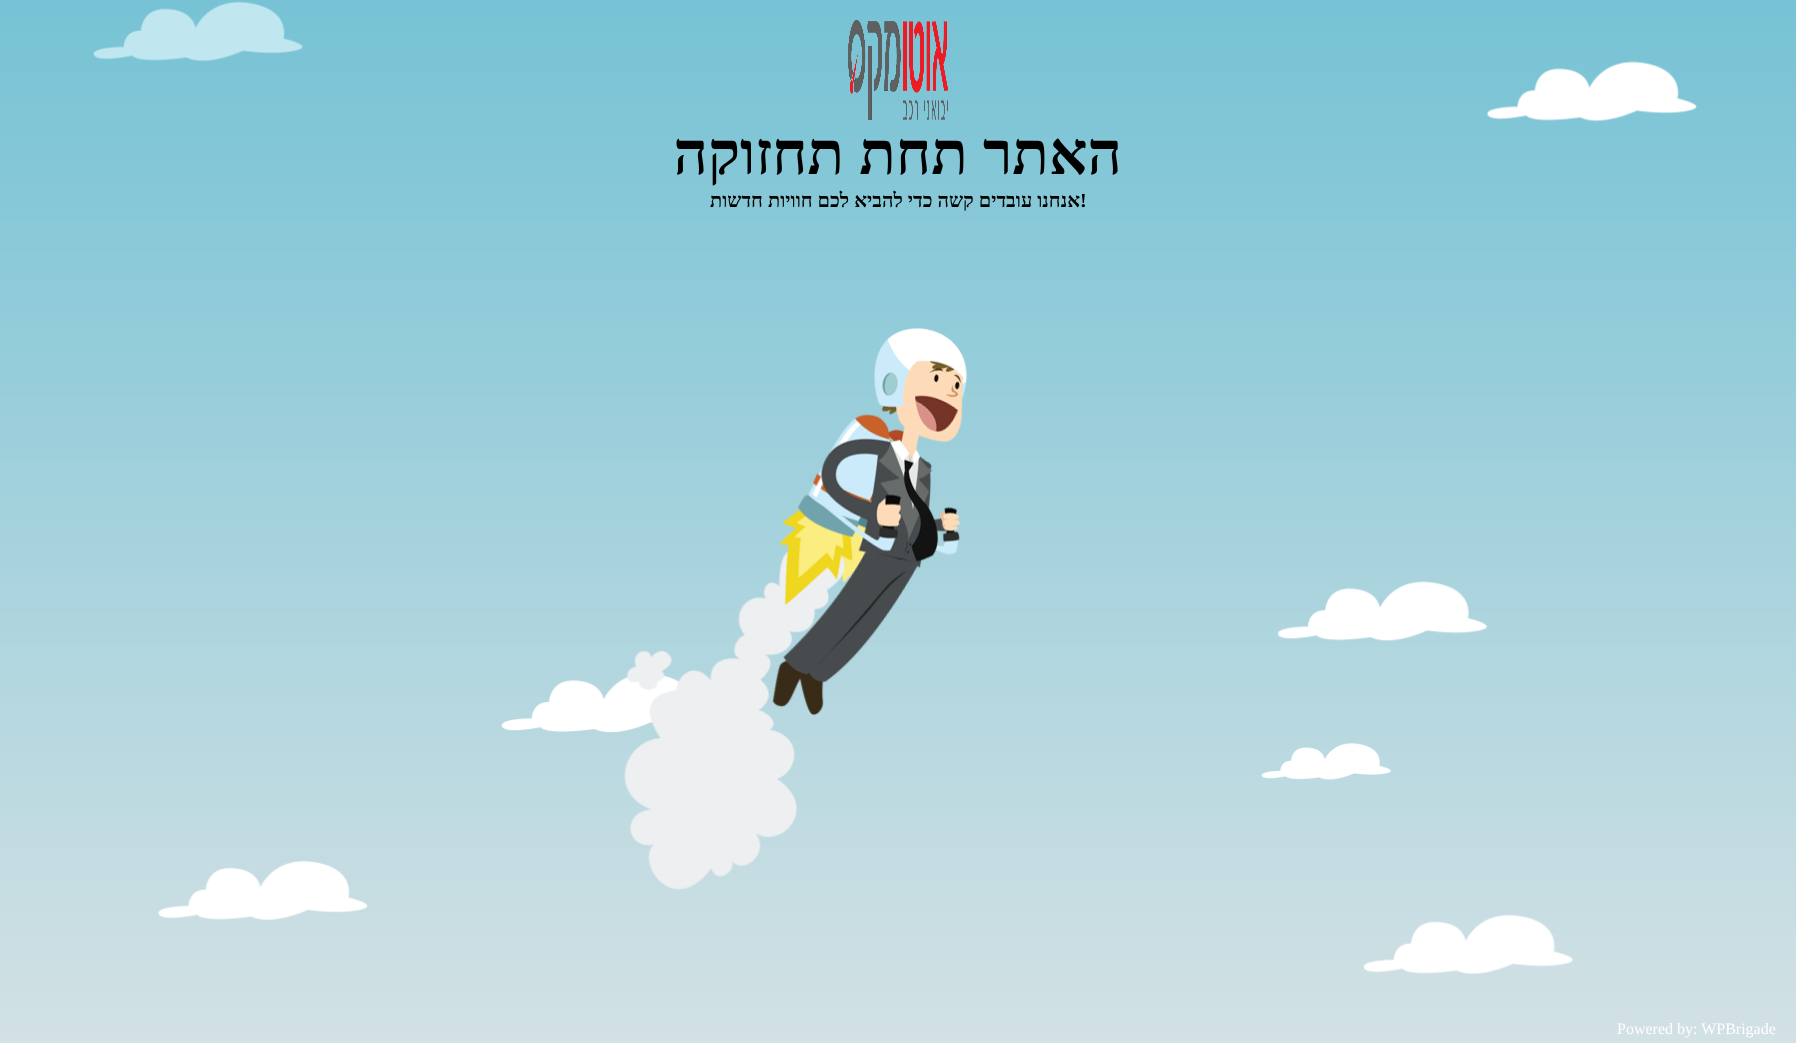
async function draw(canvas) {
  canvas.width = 1796;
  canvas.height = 1043;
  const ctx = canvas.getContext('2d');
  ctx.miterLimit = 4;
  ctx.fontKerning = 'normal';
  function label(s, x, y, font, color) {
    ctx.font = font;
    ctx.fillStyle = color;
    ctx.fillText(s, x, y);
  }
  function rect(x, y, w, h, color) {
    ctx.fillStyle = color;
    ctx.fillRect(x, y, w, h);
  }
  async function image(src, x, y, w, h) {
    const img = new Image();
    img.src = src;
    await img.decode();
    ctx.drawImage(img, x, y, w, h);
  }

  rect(0, 0, 1796, 1043, '#fff');
  await image('assets/img1.png', 0, 0, 1796, 1043);
  await image('assets/img2.png', 848, 20, 100, 100);
  ctx.direction = 'rtl';
  label('האתר תחת תחזוקה', 1122, 174, 'bold 60px Liberation Serif', '#000');
  ctx.direction = 'ltr';
  label('!', 1080, 207, 'bold 20px Liberation Serif', '#000');
  ctx.direction = 'rtl';
  label('אנחנו עובדים קשה כדי להביא לכם חוויות חדשות', 1080, 207, 'bold 20px Liberation Serif', '#000');
  ctx.direction = 'ltr';
  label('Powered by: WPBrigade', 1617, 1034, '16px Liberation Serif', '#fff');
}

draw(document.querySelector('canvas'));
